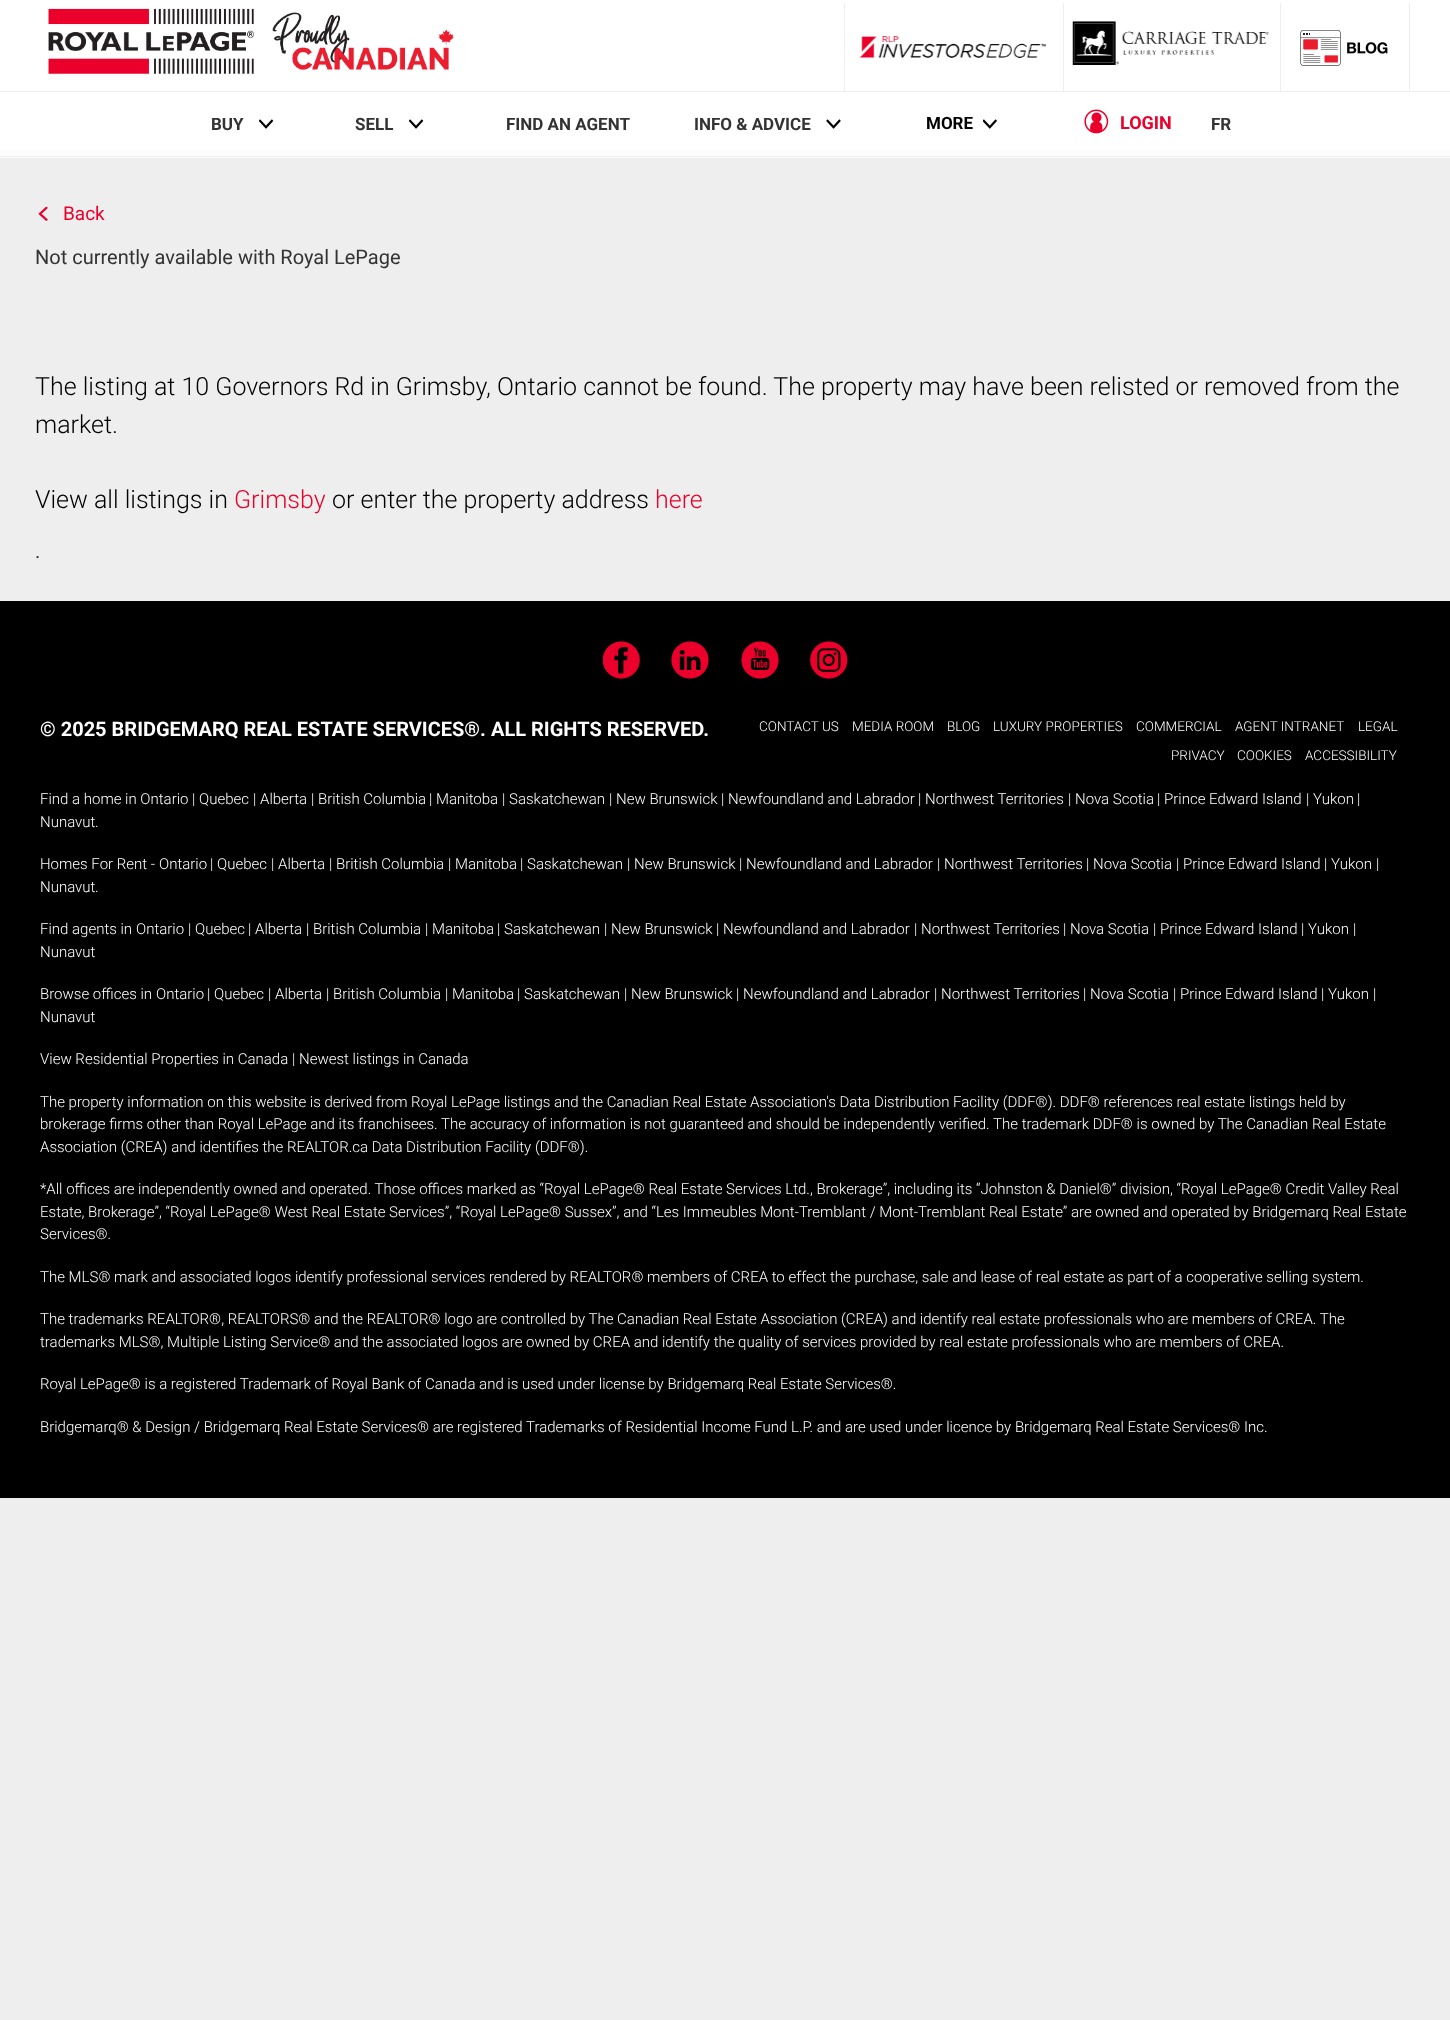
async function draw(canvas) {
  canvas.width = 1450;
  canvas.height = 2020;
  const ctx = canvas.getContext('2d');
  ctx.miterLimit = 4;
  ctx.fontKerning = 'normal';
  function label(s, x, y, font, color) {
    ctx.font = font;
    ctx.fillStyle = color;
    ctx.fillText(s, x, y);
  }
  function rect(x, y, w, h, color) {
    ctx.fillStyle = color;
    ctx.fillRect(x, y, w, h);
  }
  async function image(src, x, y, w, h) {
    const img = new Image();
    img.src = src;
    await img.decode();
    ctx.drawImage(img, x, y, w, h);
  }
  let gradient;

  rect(0, 0, 1450, 2020, '#eee');
  gradient = ctx.createLinearGradient(725, 0, 725, 158);
  gradient.addColorStop(0, '#fff');
  gradient.addColorStop(0.95, '#fff');
  gradient.addColorStop(0.95, '#fdfdfd');
  gradient.addColorStop(1, '#fcfcfc');
  ctx.fillStyle = gradient;
  ctx.fillRect(0, 0, 1450, 158);
  await image('assets/img1.png', 48, 8, 406, 66);
  rect(844, 3, 1, 88, '#eee');
  await image('assets/img2.png', 859, 36, 187, 22);
  rect(1063, 3, 1, 88, '#eee');
  await image('assets/img3.png', 1072, 21, 197, 44);
  rect(1409, 3, 1, 88, '#eee');
  rect(1280, 3, 1, 88, '#eee');
  await image('assets/img4.png', 1300, 30, 88, 36);
  rect(0, 91, 1450, 1, '#eee');
  rect(0, 156, 1450, 1, '#eee');
  label('BUY', 211, 130, 'bold 17px Roboto', '#333');
  await image('assets/img5.png', 259, 119, 15, 10);
  label('SELL', 355, 130, 'bold 17px Roboto', '#333');
  await image('assets/img5.png', 409, 119, 15, 10);
  label('FIND AN AGENT', 506, 130, 'bold 17px Roboto', '#333');
  label('INFO & ADVICE', 694, 130, 'bold 17px Roboto', '#333');
  await image('assets/img6.png', 826, 119, 15, 10);
  label('MORE', 926, 129, 'bold 17px Roboto', '#000');
  await image('assets/img7.png', 983, 119, 14, 10);
  await image('assets/img8.png', 1084, 109, 25, 25);
  label('LOGIN', 1120, 129, 'bold 18px Roboto', '#ea002a');
  label('FR', 1211, 130, 'bold 17px Roboto', '#333');
  await image('assets/img9.png', 38, 206, 10, 15);
  label('Back', 63, 220, '19px Roboto', '#ea002a');
  label('Not currently available with Royal LePage', 35, 264, '20px Roboto', '#333');
  label('The listing at 10 Governors Rd in Grimsby, Ontario cannot be found. The property may have been relisted or removed from the', 35, 395, '300 25px Roboto', '#000');
  label('market.', 35, 433, '300 25px Roboto', '#000');
  label('View all listings in', 35, 508, '300 25px Roboto', '#000');
  label('Grimsby', 234, 508, '300 25px Roboto', '#ea002a');
  label('or enter the property address', 332, 508, '300 25px Roboto', '#000');
  label('here', 655, 508, '300 25px Roboto', '#ea002a');
  label('.', 35, 558, '20px Roboto', '#333');
  rect(0, 601, 1450, 897, '#000');
  await image('assets/img10.png', 603, 641, 37, 38);
  await image('assets/img11.png', 671, 641, 38, 38);
  await image('assets/img12.png', 741, 641, 38, 38);
  await image('assets/img13.png', 810, 641, 38, 38);
  label('© 2025 BRIDGEMARQ REAL ESTATE SERVICES®.', 40, 736, 'bold 20px Roboto', '#fff');
  label('ALL RIGHTS RESERVED.', 491, 736, 'bold 20px Roboto', '#fff');
  label('CONTACT US', 759, 731, '300 13.5px Roboto', '#fff');
  label('MEDIA ROOM', 852, 731, '300 13.5px Roboto', '#fff');
  label('BLOG', 947, 731, '300 13.5px Roboto', '#fff');
  label('LUXURY PROPERTIES', 993, 731, '300 13.5px Roboto', '#fff');
  label('COMMERCIAL', 1136, 731, '300 13.5px Roboto', '#fff');
  label('AGENT INTRANET', 1235, 731, '300 13.5px Roboto', '#fff');
  label('LEGAL', 1358, 731, '300 13.5px Roboto', '#fff');
  label('PRIVACY', 1171, 760, '300 13.5px Roboto', '#fff');
  label('COOKIES', 1237, 760, '300 13.5px Roboto', '#fff');
  label('ACCESSIBILITY', 1305, 760, '300 13.5px Roboto', '#fff');
  label('Find a home in Ontario', 40, 804, '300 15px Roboto', '#fff');
  label('|', 192, 804, '300 15px Roboto', '#fff');
  label('Quebec', 199, 804, '300 15px Roboto', '#fff');
  label('|', 253, 804, '300 15px Roboto', '#fff');
  label('Alberta', 260, 804, '300 15px Roboto', '#fff');
  label('|', 311, 804, '300 15px Roboto', '#fff');
  label('British Columbia', 318, 804, '300 15px Roboto', '#fff');
  label('|', 429, 804, '300 15px Roboto', '#fff');
  label('Manitoba', 436, 804, '300 15px Roboto', '#fff');
  label('|', 502, 804, '300 15px Roboto', '#fff');
  label('Saskatchewan', 509, 804, '300 15px Roboto', '#fff');
  label('|', 609, 804, '300 15px Roboto', '#fff');
  label('New Brunswick', 616, 804, '300 15px Roboto', '#fff');
  label('|', 721, 804, '300 15px Roboto', '#fff');
  label('Newfoundland and Labrador', 728, 804, '300 15px Roboto', '#fff');
  label('|', 918, 804, '300 15px Roboto', '#fff');
  label('Northwest Territories', 925, 804, '300 15px Roboto', '#fff');
  label('|', 1068, 804, '300 15px Roboto', '#fff');
  label('Nova Scotia', 1075, 804, '300 15px Roboto', '#fff');
  label('|', 1157, 804, '300 15px Roboto', '#fff');
  label('Prince Edward Island', 1164, 804, '300 15px Roboto', '#fff');
  label('|', 1306, 804, '300 15px Roboto', '#fff');
  label('Yukon', 1313, 804, '300 15px Roboto', '#fff');
  label('|', 1357, 804, '300 15px Roboto', '#fff');
  label('Nunavut', 40, 827, '300 15px Roboto', '#fff');
  label('.', 95, 827, '300 15px Roboto', '#fff');
  label('Homes For Rent -', 40, 869, '300 15px Roboto', '#fff');
  label('Ontario', 159, 869, '300 15px Roboto', '#fff');
  label('|', 210, 869, '300 15px Roboto', '#fff');
  label('Quebec', 217, 869, '300 15px Roboto', '#fff');
  label('|', 271, 869, '300 15px Roboto', '#fff');
  label('Alberta', 278, 869, '300 15px Roboto', '#fff');
  label('|', 329, 869, '300 15px Roboto', '#fff');
  label('British Columbia', 336, 869, '300 15px Roboto', '#fff');
  label('|', 448, 869, '300 15px Roboto', '#fff');
  label('Manitoba', 455, 869, '300 15px Roboto', '#fff');
  label('|', 520, 869, '300 15px Roboto', '#fff');
  label('Saskatchewan', 527, 869, '300 15px Roboto', '#fff');
  label('|', 627, 869, '300 15px Roboto', '#fff');
  label('New Brunswick', 634, 869, '300 15px Roboto', '#fff');
  label('|', 739, 869, '300 15px Roboto', '#fff');
  label('Newfoundland and Labrador', 746, 869, '300 15px Roboto', '#fff');
  label('|', 937, 869, '300 15px Roboto', '#fff');
  label('Northwest Territories', 944, 869, '300 15px Roboto', '#fff');
  label('|', 1086, 869, '300 15px Roboto', '#fff');
  label('Nova Scotia', 1093, 869, '300 15px Roboto', '#fff');
  label('|', 1176, 869, '300 15px Roboto', '#fff');
  label('Prince Edward Island', 1183, 869, '300 15px Roboto', '#fff');
  label('|', 1324, 869, '300 15px Roboto', '#fff');
  label('Yukon', 1331, 869, '300 15px Roboto', '#fff');
  label('|', 1376, 869, '300 15px Roboto', '#fff');
  label('Nunavut', 40, 892, '300 15px Roboto', '#fff');
  label('.', 95, 892, '300 15px Roboto', '#fff');
  label('Find agents in', 40, 934, '300 15px Roboto', '#fff');
  label('Ontario', 136, 934, '300 15px Roboto', '#fff');
  label('|', 188, 934, '300 15px Roboto', '#fff');
  label('Quebec', 195, 934, '300 15px Roboto', '#fff');
  label('|', 248, 934, '300 15px Roboto', '#fff');
  label('Alberta', 255, 934, '300 15px Roboto', '#fff');
  label('|', 306, 934, '300 15px Roboto', '#fff');
  label('British Columbia', 313, 934, '300 15px Roboto', '#fff');
  label('|', 425, 934, '300 15px Roboto', '#fff');
  label('Manitoba', 432, 934, '300 15px Roboto', '#fff');
  label('|', 497, 934, '300 15px Roboto', '#fff');
  label('Saskatchewan', 504, 934, '300 15px Roboto', '#fff');
  label('|', 604, 934, '300 15px Roboto', '#fff');
  label('New Brunswick', 611, 934, '300 15px Roboto', '#fff');
  label('|', 716, 934, '300 15px Roboto', '#fff');
  label('Newfoundland and Labrador', 723, 934, '300 15px Roboto', '#fff');
  label('|', 914, 934, '300 15px Roboto', '#fff');
  label('Northwest Territories', 921, 934, '300 15px Roboto', '#fff');
  label('|', 1063, 934, '300 15px Roboto', '#fff');
  label('Nova Scotia', 1070, 934, '300 15px Roboto', '#fff');
  label('|', 1153, 934, '300 15px Roboto', '#fff');
  label('Prince Edward Island', 1160, 934, '300 15px Roboto', '#fff');
  label('|', 1301, 934, '300 15px Roboto', '#fff');
  label('Yukon', 1308, 934, '300 15px Roboto', '#fff');
  label('|', 1353, 934, '300 15px Roboto', '#fff');
  label('Nunavut', 40, 957, '300 15px Roboto', '#fff');
  label('Browse offices in', 40, 999, '300 15px Roboto', '#fff');
  label('Ontario', 156, 999, '300 15px Roboto', '#fff');
  label('|', 207, 999, '300 15px Roboto', '#fff');
  label('Quebec', 214, 999, '300 15px Roboto', '#fff');
  label('|', 268, 999, '300 15px Roboto', '#fff');
  label('Alberta', 275, 999, '300 15px Roboto', '#fff');
  label('|', 326, 999, '300 15px Roboto', '#fff');
  label('British Columbia', 333, 999, '300 15px Roboto', '#fff');
  label('|', 445, 999, '300 15px Roboto', '#fff');
  label('Manitoba', 452, 999, '300 15px Roboto', '#fff');
  label('|', 517, 999, '300 15px Roboto', '#fff');
  label('Saskatchewan', 524, 999, '300 15px Roboto', '#fff');
  label('|', 624, 999, '300 15px Roboto', '#fff');
  label('New Brunswick', 631, 999, '300 15px Roboto', '#fff');
  label('|', 736, 999, '300 15px Roboto', '#fff');
  label('Newfoundland and Labrador', 743, 999, '300 15px Roboto', '#fff');
  label('|', 934, 999, '300 15px Roboto', '#fff');
  label('Northwest Territories', 941, 999, '300 15px Roboto', '#fff');
  label('|', 1083, 999, '300 15px Roboto', '#fff');
  label('Nova Scotia', 1090, 999, '300 15px Roboto', '#fff');
  label('|', 1173, 999, '300 15px Roboto', '#fff');
  label('Prince Edward Island', 1180, 999, '300 15px Roboto', '#fff');
  label('|', 1321, 999, '300 15px Roboto', '#fff');
  label('Yukon', 1328, 999, '300 15px Roboto', '#fff');
  label('|', 1373, 999, '300 15px Roboto', '#fff');
  label('Nunavut', 40, 1022, '300 15px Roboto', '#fff');
  label('View Residential Properties in Canada', 40, 1064, '300 15px Roboto', '#fff');
  label('|', 292, 1064, '300 15px Roboto', '#fff');
  label('Newest listings in Canada', 299, 1064, '300 15px Roboto', '#fff');
  label('The property information on this website is derived from Royal LePage listings and the Canadian Real Estate Association\'s Data Distribution Facility (DDF®). DDF® references real estate listings held by', 40, 1107, '300 15px Roboto', '#fff');
  label('brokerage firms other than Royal LePage and its franchisees. The accuracy of information is not guaranteed and should be independently verified. The trademark DDF® is owned by The Canadian Real Estate', 40, 1129, '300 15px Roboto', '#fff');
  label('Association (CREA) and identifies the REALTOR.ca Data Distribution Facility (DDF®).', 40, 1152, '300 15px Roboto', '#fff');
  label('*All offices are independently owned and operated. Those offices marked as “Royal LePage® Real Estate Services Ltd., Brokerage”, including its “Johnston & Daniel®” division, “Royal LePage® Credit Valley Real', 40, 1194, '300 15px Roboto', '#fff');
  label('Estate, Brokerage”, “Royal LePage® West Real Estate Services”, “Royal LePage® Sussex”, and “Les Immeubles Mont-Tremblant / Mont-Tremblant Real Estate” are owned and operated by Bridgemarq Real Estate', 40, 1217, '300 15px Roboto', '#fff');
  label('Services®.', 40, 1239, '300 15px Roboto', '#fff');
  label('The MLS® mark and associated logos identify professional services rendered by REALTOR® members of CREA to effect the purchase, sale and lease of real estate as part of a cooperative selling system.', 40, 1282, '300 15px Roboto', '#fff');
  label('The trademarks REALTOR®, REALTORS® and the REALTOR® logo are controlled by The Canadian Real Estate Association (CREA) and identify real estate professionals who are members of CREA. The', 40, 1324, '300 15px Roboto', '#fff');
  label('trademarks MLS®, Multiple Listing Service® and the associated logos are owned by CREA and identify the quality of services provided by real estate professionals who are members of CREA.', 40, 1347, '300 15px Roboto', '#fff');
  label('Royal LePage® is a registered Trademark of Royal Bank of Canada and is used under license by Bridgemarq Real Estate Services®.', 40, 1389, '300 15px Roboto', '#fff');
  label('Bridgemarq® & Design / Bridgemarq Real Estate Services® are registered Trademarks of Residential Income Fund L.P. and are used under licence by Bridgemarq Real Estate Services® Inc.', 40, 1432, '300 15px Roboto', '#fff');
}

draw(document.querySelector('canvas'));
